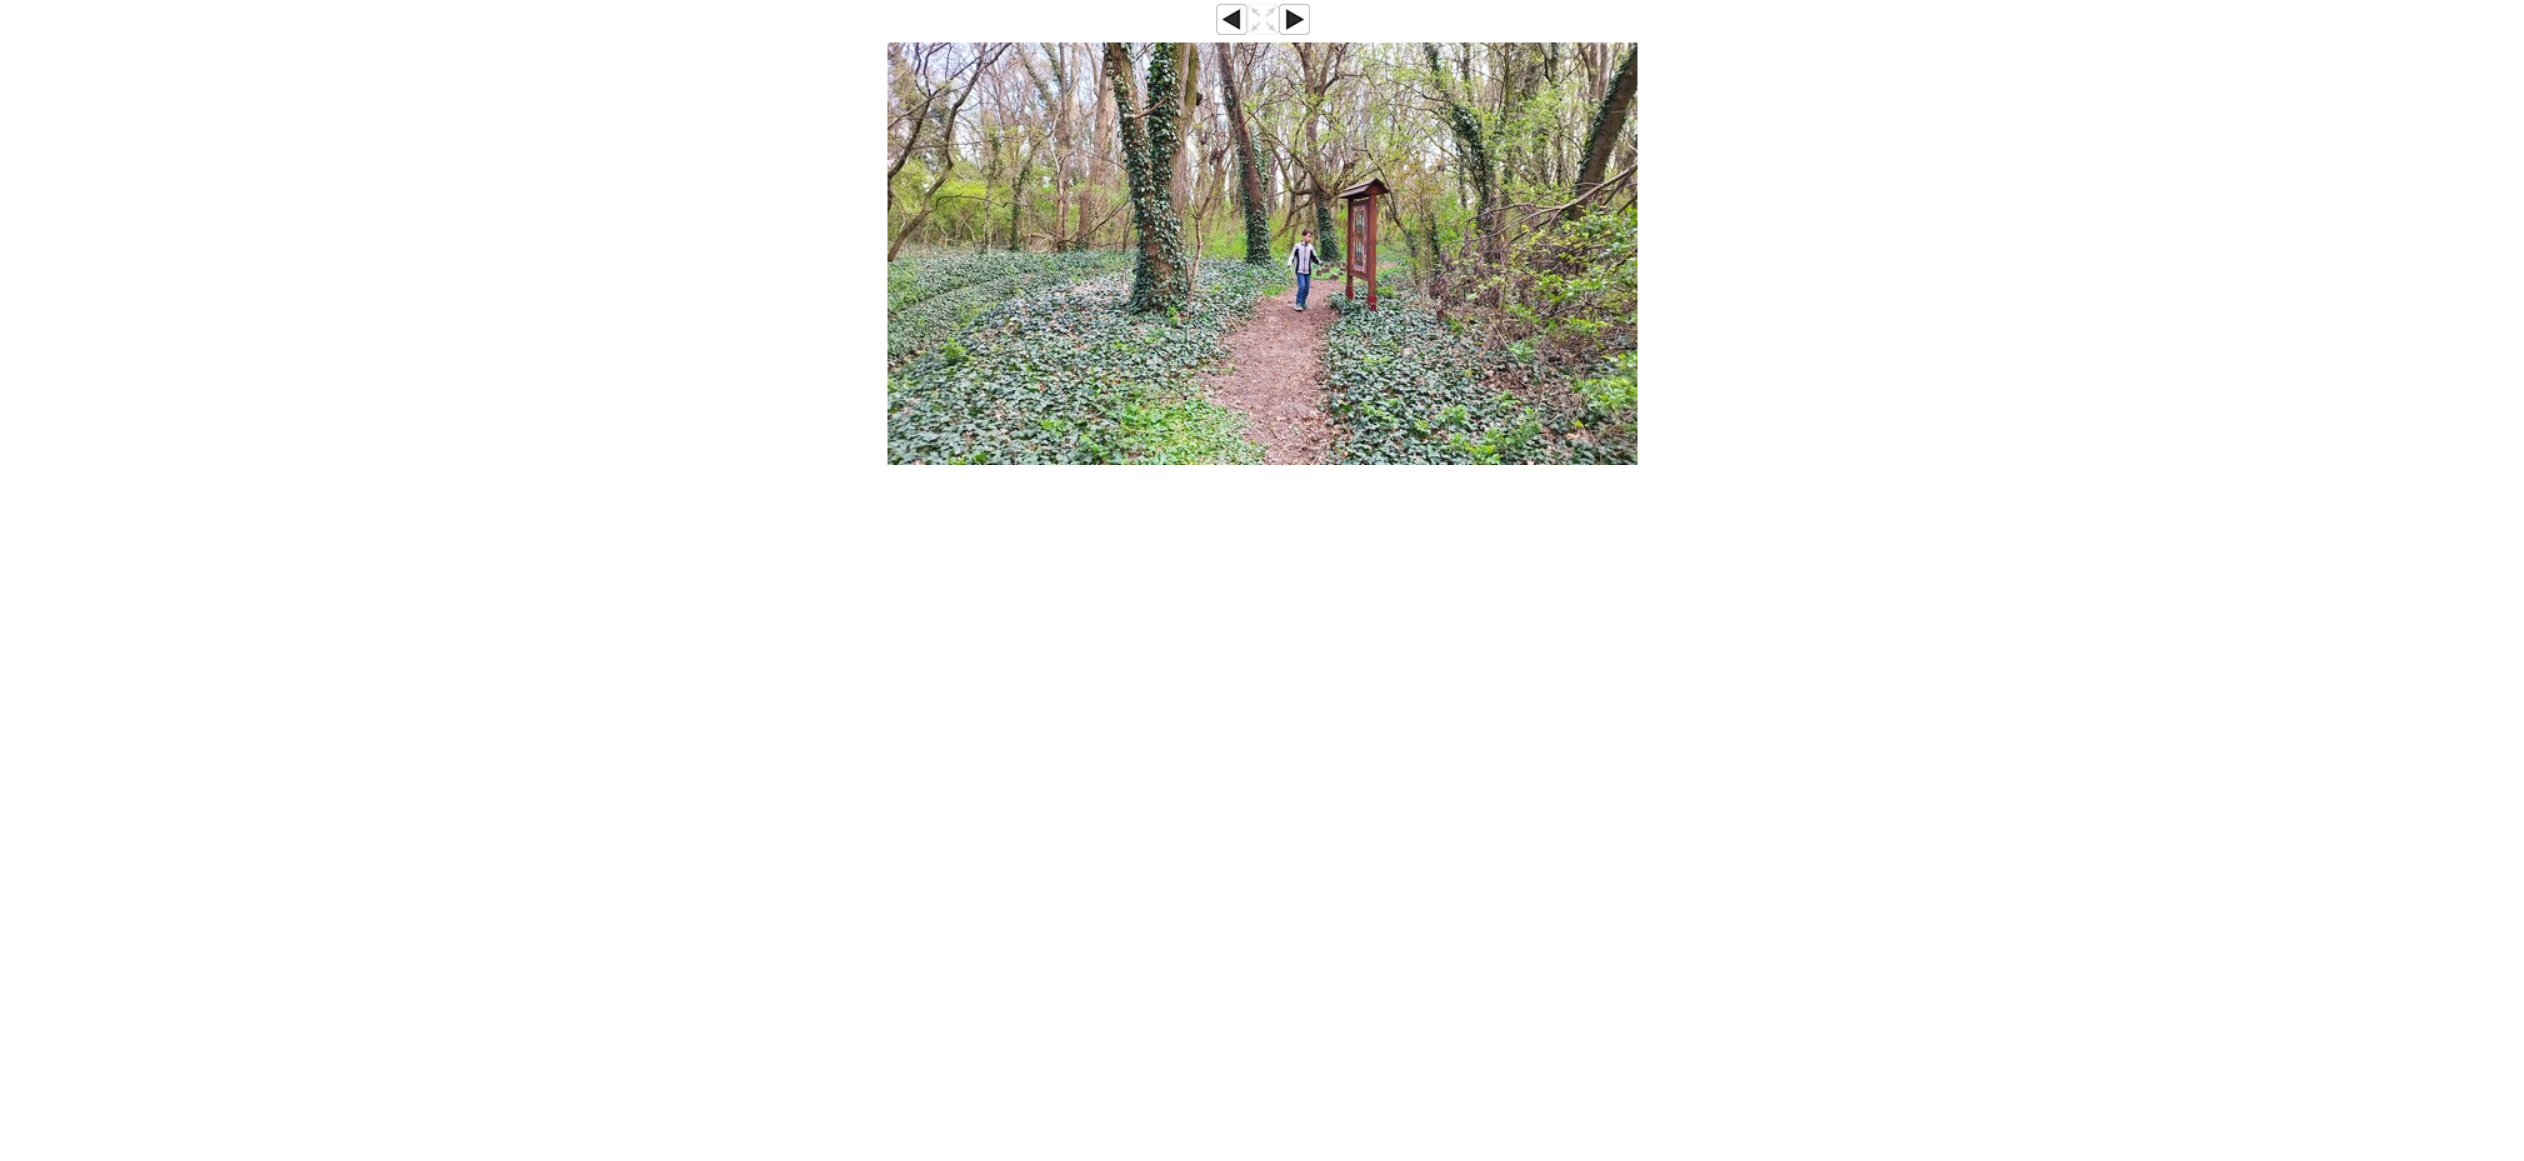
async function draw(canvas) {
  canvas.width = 2524;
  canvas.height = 1161;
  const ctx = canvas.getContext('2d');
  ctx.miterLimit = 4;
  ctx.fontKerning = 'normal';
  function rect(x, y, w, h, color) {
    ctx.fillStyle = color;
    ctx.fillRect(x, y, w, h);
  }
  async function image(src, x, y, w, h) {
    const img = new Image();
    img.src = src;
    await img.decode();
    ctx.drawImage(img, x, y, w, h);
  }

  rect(0, 0, 2524, 1161, '#fff');
  await image('assets/img1.png', 1216, 3, 32, 32);
  await image('assets/img2.png', 1247, 3, 32, 32);
  await image('assets/img3.png', 1278, 3, 32, 32);
  await image('assets/img4.png', 887, 42, 751, 423);
}

draw(document.querySelector('canvas'));
